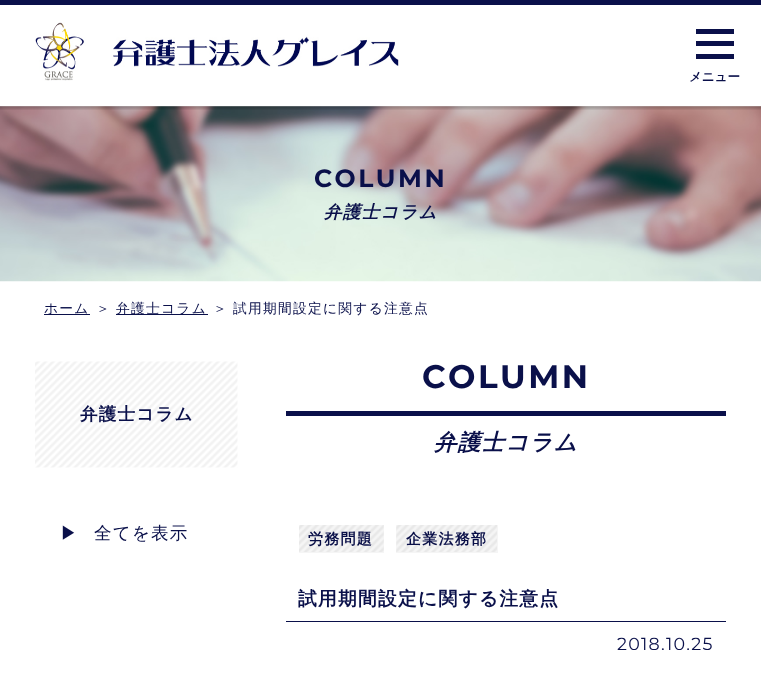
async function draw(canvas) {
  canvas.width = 761;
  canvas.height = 689;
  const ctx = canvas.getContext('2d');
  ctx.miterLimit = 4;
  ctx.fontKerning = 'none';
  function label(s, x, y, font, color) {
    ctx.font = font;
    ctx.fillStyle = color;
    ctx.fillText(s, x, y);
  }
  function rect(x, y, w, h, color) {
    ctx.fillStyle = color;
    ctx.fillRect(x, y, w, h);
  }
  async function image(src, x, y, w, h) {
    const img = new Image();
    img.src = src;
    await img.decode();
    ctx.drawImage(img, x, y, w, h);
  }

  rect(0, 0, 761, 689, '#fff');
  await image('assets/img2.png', 0, 106, 761, 176);
  ctx.save();
  ctx.beginPath();
  ctx.rect(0, 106, 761, 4);
  ctx.clip();
  ctx.fillStyle = '#00000033';
  ctx.filter = 'blur(1px)';
  ctx.beginPath();
  ctx.rect(-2, -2, 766, 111);
  ctx.fill();
  ctx.filter = 'none';
  ctx.restore();
  rect(0, 0, 761, 5, '#0a104a');
  await image('assets/img1.png', 35, 22, 364, 59);
  rect(696, 29, 38, 5, '#0a104a');
  rect(696, 41, 38, 5, '#0a104a');
  rect(696, 54, 38, 5, '#0a104a');
  label('メニュー', 689, 81, 'bold 12.5px WenQuanYi Zen Hei', '#0a104a');
  ctx.letterSpacing = '2.5px';
  label('COLUMN', 314, 187, 'bold 25px Montserrat', '#0a104a');
  ctx.letterSpacing = '1.25px';
  label('弁護士コラム', 324, 218, 'italic bold 17.5px WenQuanYi Zen Hei', '#0a104a');
  rect(44, 314, 46, 1, '#0a104a');
  label('ホーム', 44, 313, '500 13.75px WenQuanYi Zen Hei', '#0a104a');
  label('＞', 96, 313, '500 13.75px WenQuanYi Zen Hei', '#0a104a');
  rect(116, 314, 92, 1, '#0a104a');
  label('弁護士コラム', 116, 313, '500 13.75px WenQuanYi Zen Hei', '#0a104a');
  label('＞', 213, 313, '500 13.75px WenQuanYi Zen Hei', '#0a104a');
  label('試用期間設定に関する注意点', 233, 313, '500 13.75px WenQuanYi Zen Hei', '#0a104a');
  await image('assets/img3.png', 35, 361, 203, 107);
  label('弁護士コラム', 80, 420, 'bold 17.5px WenQuanYi Zen Hei', '#0a104a');
  label('▶︎', 60, 539, '500 17.5px WenQuanYi Zen Hei', '#0a104a');
  label('全てを表示', 94, 539, '500 17.5px WenQuanYi Zen Hei', '#0a104a');
  rect(286, 411, 440, 5, '#0a104a');
  ctx.letterSpacing = '2.5px';
  label('COLUMN', 422, 388, 'bold 32.5px Montserrat', '#0a104a');
  ctx.letterSpacing = '1.25px';
  label('弁護士コラム', 434, 450, 'italic bold 22.5px WenQuanYi Zen Hei', '#0a104a');
  rect(299, 525, 85, 28, '#f5f5f5');
  label('労務問題', 308, 544, 'bold 15px WenQuanYi Zen Hei', '#0a104a');
  await image('assets/img4.png', 299, 525, 85, 27);
  rect(396, 525, 102, 28, '#f5f5f5');
  label('企業法務部', 406, 544, 'bold 15px WenQuanYi Zen Hei', '#0a104a');
  await image('assets/img5.png', 396, 525, 101, 27);
  rect(286, 621, 440, 1, '#0a104a');
  label('試用期間設定に関する注意点', 298, 605, 'bold 18.75px WenQuanYi Zen Hei', '#0a104a');
  label('2018.10.25', 617, 650, '17.5px Montserrat', '#0a104a');
}

draw(document.querySelector('canvas'));
